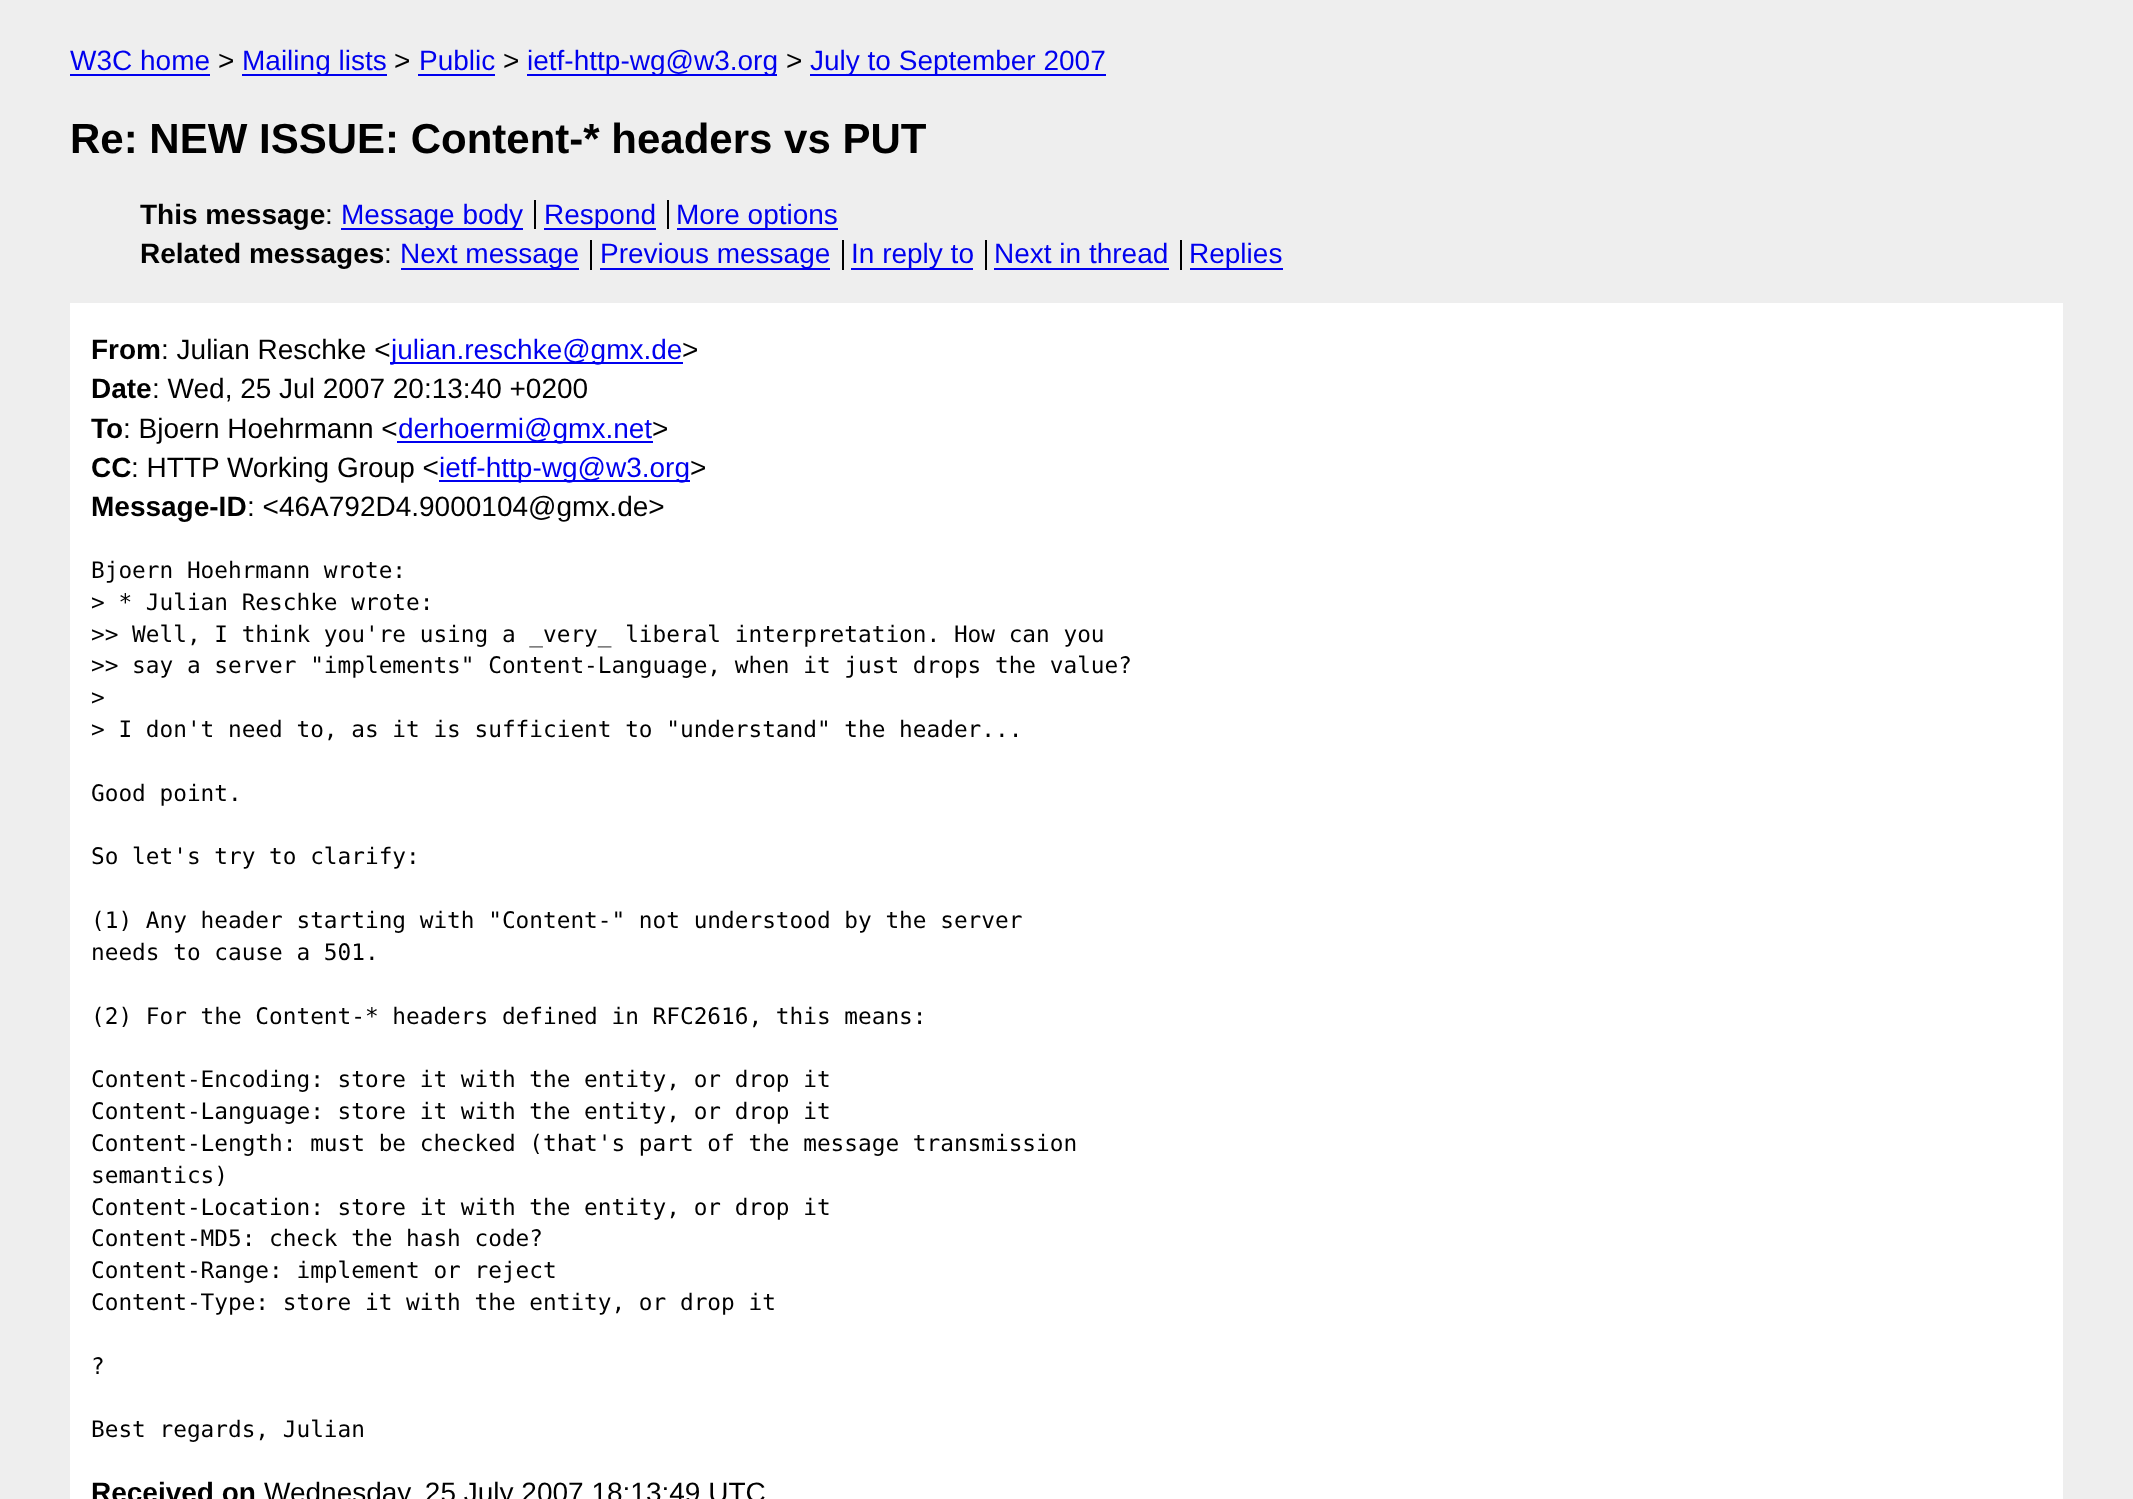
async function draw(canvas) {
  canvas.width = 2133;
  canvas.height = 1499;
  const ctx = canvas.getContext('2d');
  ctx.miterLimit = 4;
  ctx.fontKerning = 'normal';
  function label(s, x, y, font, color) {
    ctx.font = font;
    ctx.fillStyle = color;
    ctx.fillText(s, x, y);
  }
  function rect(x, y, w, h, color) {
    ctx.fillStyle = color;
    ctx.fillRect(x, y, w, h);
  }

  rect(0, 0, 2133, 1499, '#eee');
  label('W3C home', 70, 70, '28px Liberation Sans', '#00e');
  rect(70, 74, 140, 2, '#00e');
  label('>', 218, 70, '28px Liberation Sans', '#000');
  rect(242, 74, 145, 2, '#00e');
  label('Mailing lists', 242, 70, '28px Liberation Sans', '#00e');
  label('>', 394, 70, '28px Liberation Sans', '#000');
  label('Public', 419, 70, '28px Liberation Sans', '#00e');
  rect(418, 74, 77, 2, '#00e');
  label('>', 503, 70, '28px Liberation Sans', '#000');
  rect(527, 74, 250, 2, '#00e');
  label('ietf-http-wg@w3.org', 527, 70, '28px Liberation Sans', '#00e');
  label('>', 786, 70, '28px Liberation Sans', '#000');
  rect(810, 74, 296, 2, '#00e');
  label('July to September 2007', 810, 70, '28px Liberation Sans', '#00e');
  label('Re: NEW ISSUE: Content-* headers vs PUT', 70, 153, 'bold 42px Liberation Sans', '#000');
  label('This message', 140, 224, 'bold 28px Liberation Sans', '#000');
  label(':', 325, 224, '28px Liberation Sans', '#000');
  rect(341, 228, 182, 2, '#00e');
  label('Message body', 341, 224, '28px Liberation Sans', '#00e');
  rect(544, 228, 112, 2, '#00e');
  label('Respond', 544, 224, '28px Liberation Sans', '#00e');
  rect(534, 200, 2, 29, '#000');
  rect(677, 228, 161, 2, '#00e');
  label('More options', 676, 224, '28px Liberation Sans', '#00e');
  rect(667, 200, 2, 29, '#000');
  label('Related messages', 140, 263, 'bold 28px Liberation Sans', '#000');
  label(':', 384, 263, '28px Liberation Sans', '#000');
  rect(401, 268, 178, 2, '#00e');
  label('Next message', 400, 263, '28px Liberation Sans', '#00e');
  rect(600, 268, 230, 2, '#00e');
  label('Previous message', 600, 263, '28px Liberation Sans', '#00e');
  rect(590, 240, 2, 30, '#000');
  rect(851, 268, 122, 2, '#00e');
  label('In reply to', 851, 263, '28px Liberation Sans', '#00e');
  rect(842, 240, 2, 30, '#000');
  rect(985, 240, 2, 30, '#000');
  label('Next in thread', 994, 263, '28px Liberation Sans', '#00e');
  rect(994, 268, 175, 2, '#00e');
  rect(1190, 268, 93, 2, '#00e');
  label('Replies', 1189, 263, '28px Liberation Sans', '#00e');
  rect(1180, 240, 2, 30, '#000');
  rect(70, 303, 1993, 1196, '#fff');
  label('From', 91, 359, 'bold 28px Liberation Sans', '#000');
  label(': Julian Reschke <', 161, 359, '28px Liberation Sans', '#000');
  rect(390, 362, 293, 2, '#00e');
  label('julian.reschke@gmx.de', 391, 359, '28px Liberation Sans', '#00e');
  label('>', 682, 359, '28px Liberation Sans', '#000');
  label('Date', 91, 398, 'bold 28px Liberation Sans', '#000');
  label(': Wed, 25 Jul 2007 20:13:40 +0200', 152, 398, '28px Liberation Sans', '#000');
  label('To', 91, 438, 'bold 28px Liberation Sans', '#000');
  label(': Bjoern Hoehrmann <', 123, 438, '28px Liberation Sans', '#000');
  rect(397, 441, 256, 2, '#00e');
  label('derhoermi@gmx.net', 398, 438, '28px Liberation Sans', '#00e');
  label('>', 652, 438, '28px Liberation Sans', '#000');
  label('CC', 91, 477, 'bold 28px Liberation Sans', '#000');
  label(': HTTP Working Group <', 131, 477, '28px Liberation Sans', '#000');
  rect(439, 480, 251, 2, '#00e');
  label('ietf-http-wg@w3.org', 439, 477, '28px Liberation Sans', '#00e');
  label('>', 690, 477, '28px Liberation Sans', '#000');
  label('Message-ID', 91, 516, 'bold 28px Liberation Sans', '#000');
  label(': <46A792D4.9000104@gmx.de>', 247, 516, '28px Liberation Sans', '#000');
  label('Bjoern Hoehrmann wrote:', 91, 578, '22.75px DejaVu Sans Mono', '#000');
  label('> * Julian Reschke wrote:', 91, 610, '22.75px DejaVu Sans Mono', '#000');
  label('>> Well, I think you\'re using a _very_ liberal interpretation. How can you', 91, 642, '22.75px DejaVu Sans Mono', '#000');
  label('>> say a server "implements" Content-Language, when it just drops the value?', 91, 673, '22.75px DejaVu Sans Mono', '#000');
  label('>', 91, 705, '22.75px DejaVu Sans Mono', '#000');
  label('> I don\'t need to, as it is sufficient to "understand" the header...', 91, 737, '22.75px DejaVu Sans Mono', '#000');
  label('Good point.', 91, 801, '22.75px DejaVu Sans Mono', '#000');
  label('So let\'s try to clarify:', 91, 864, '22.75px DejaVu Sans Mono', '#000');
  label('(1) Any header starting with "Content-" not understood by the server', 91, 928, '22.75px DejaVu Sans Mono', '#000');
  label('needs to cause a 501.', 91, 960, '22.75px DejaVu Sans Mono', '#000');
  label('(2) For the Content-* headers defined in RFC2616, this means:', 91, 1024, '22.75px DejaVu Sans Mono', '#000');
  label('Content-Encoding: store it with the entity, or drop it', 91, 1087, '22.75px DejaVu Sans Mono', '#000');
  label('Content-Language: store it with the entity, or drop it', 91, 1119, '22.75px DejaVu Sans Mono', '#000');
  label('Content-Length: must be checked (that\'s part of the message transmission', 91, 1151, '22.75px DejaVu Sans Mono', '#000');
  label('semantics)', 91, 1183, '22.75px DejaVu Sans Mono', '#000');
  label('Content-Location: store it with the entity, or drop it', 91, 1215, '22.75px DejaVu Sans Mono', '#000');
  label('Content-MD5: check the hash code?', 91, 1246, '22.75px DejaVu Sans Mono', '#000');
  label('Content-Range: implement or reject', 91, 1278, '22.75px DejaVu Sans Mono', '#000');
  label('Content-Type: store it with the entity, or drop it', 91, 1310, '22.75px DejaVu Sans Mono', '#000');
  label('?', 91, 1374, '22.75px DejaVu Sans Mono', '#000');
  label('Best regards, Julian', 91, 1437, '22.75px DejaVu Sans Mono', '#000');
  label('Received on', 91, 1502, 'bold 28px Liberation Sans', '#000');
  label('Wednesday, 25 July 2007 18:13:49 UTC', 264, 1502, '28px Liberation Sans', '#000');
}

draw(document.querySelector('canvas'));
